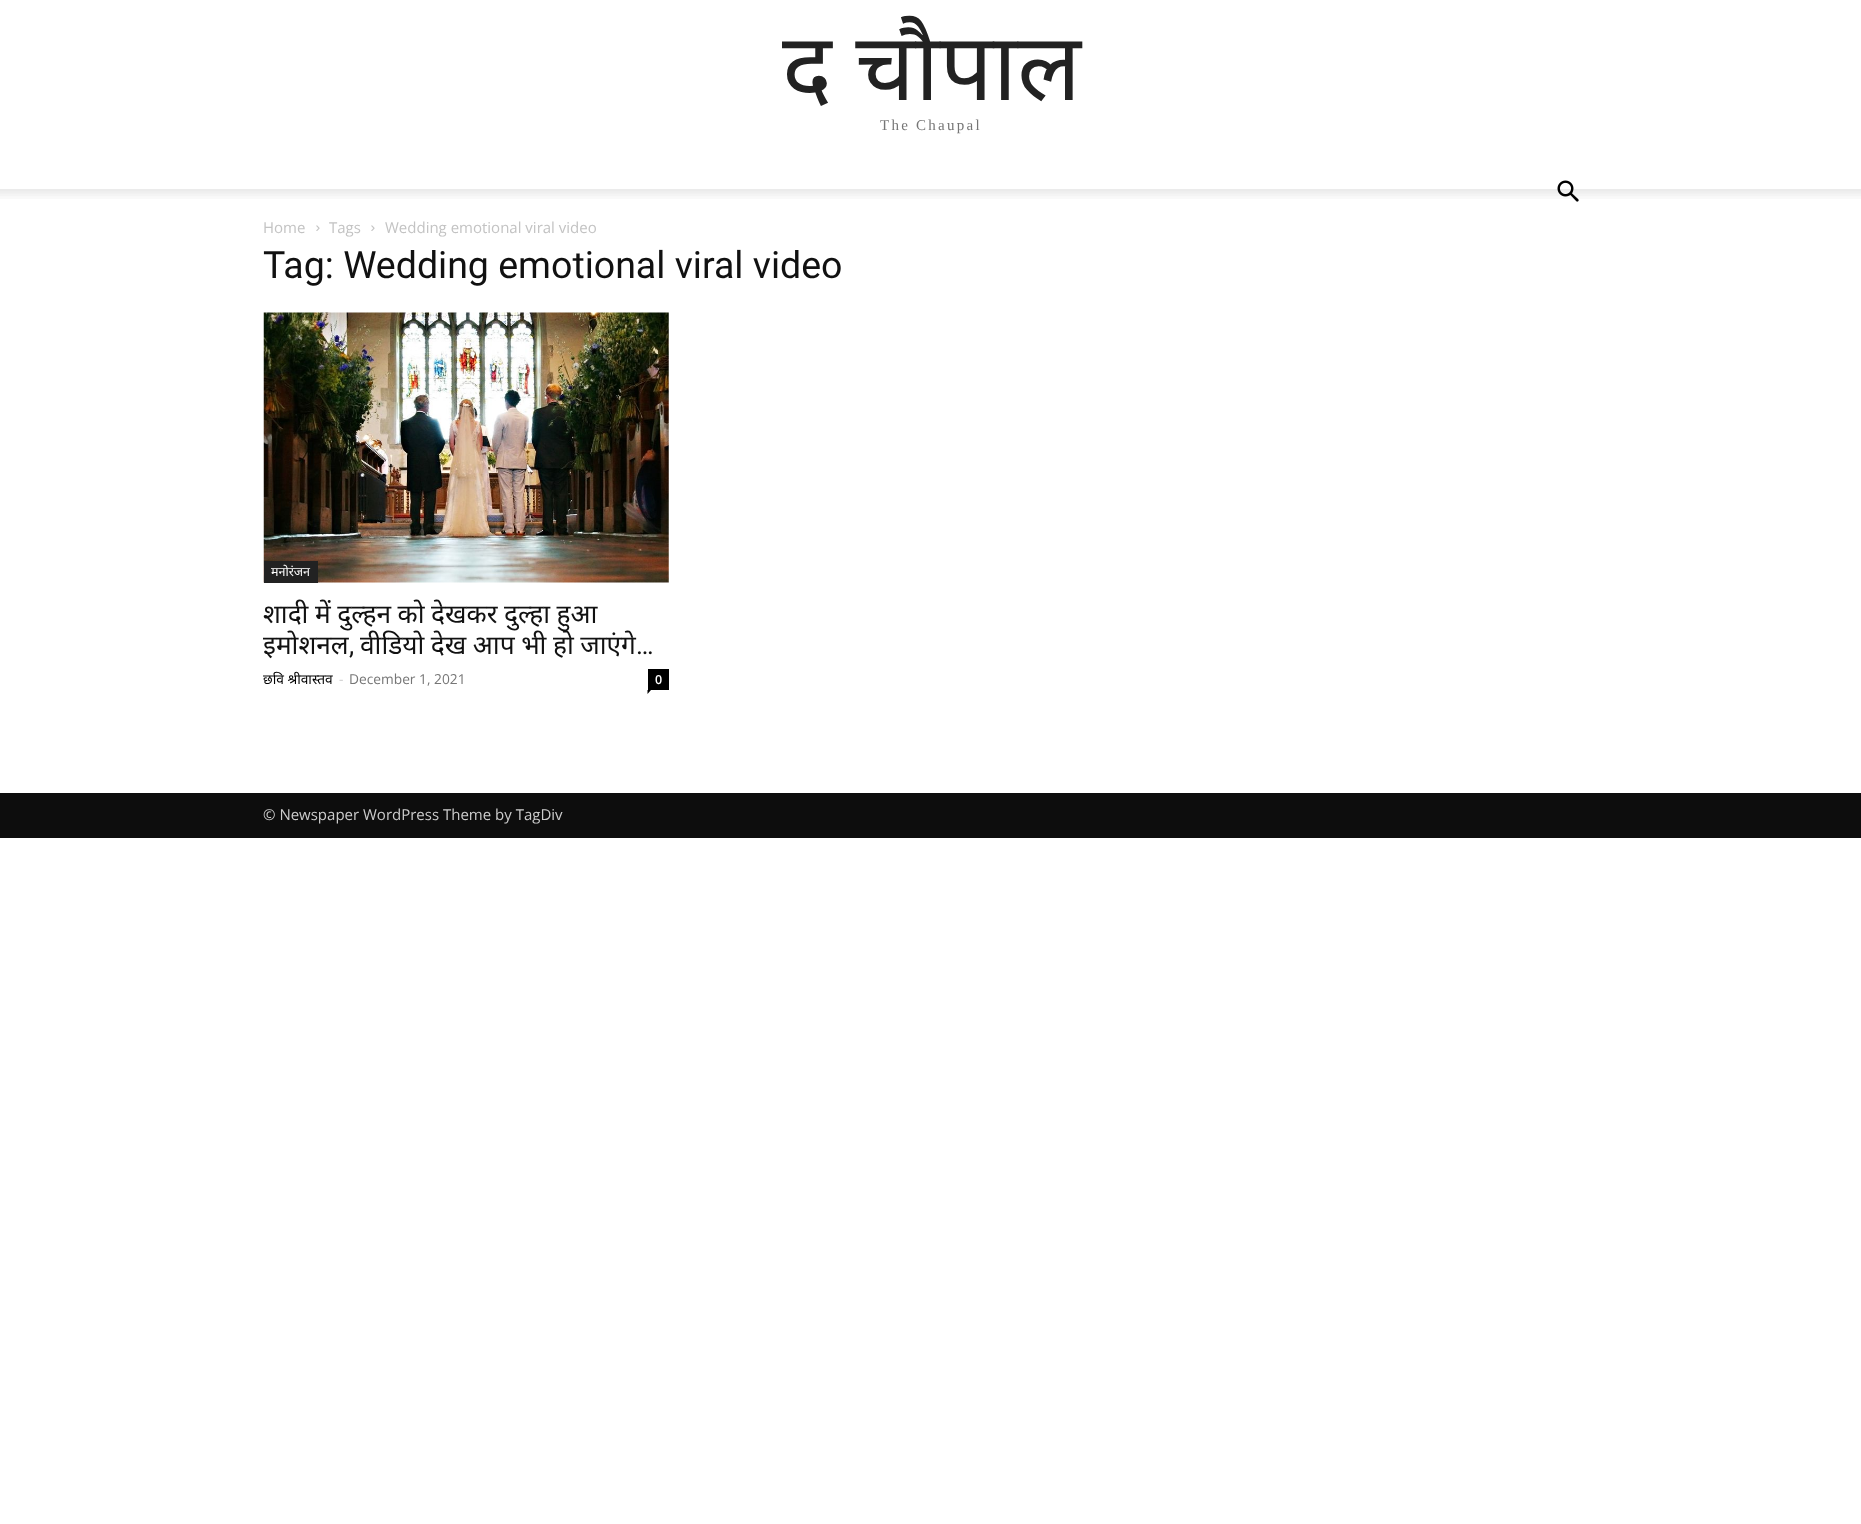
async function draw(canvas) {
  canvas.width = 1861;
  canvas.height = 1524;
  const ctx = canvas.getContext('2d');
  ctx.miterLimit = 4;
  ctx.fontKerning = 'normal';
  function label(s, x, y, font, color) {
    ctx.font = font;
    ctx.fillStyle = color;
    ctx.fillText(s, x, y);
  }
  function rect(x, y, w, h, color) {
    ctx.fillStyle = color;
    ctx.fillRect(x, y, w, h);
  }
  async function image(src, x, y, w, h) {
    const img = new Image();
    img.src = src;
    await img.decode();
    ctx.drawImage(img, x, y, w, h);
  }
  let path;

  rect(0, 0, 1861, 1524, '#fff');
  ctx.wordSpacing = '-1px';
  label('द चौपाल', 782, 100, '94px Noto Sans', '#222');
  ctx.letterSpacing = '2.25px';
  ctx.wordSpacing = '0px';
  label('The Chaupal', 880, 130, '15px Liberation Serif', '#767676');
  await image('assets/img2.png', 0, 189, 1861, 10);
  await image('assets/img1.png', 1557, 180, 22, 22);
  ctx.letterSpacing = '0px';
  label('Home', 263, 233, '15px Open Sans', '#c3c3c3');
  await image('assets/img3.png', 316, 225, 4, 6);
  label('Tags', 329, 233, '15px Open Sans', '#c3c3c3');
  await image('assets/img3.png', 371, 225, 4, 6);
  label('Wedding emotional viral video', 385, 233, '15px Open Sans', '#c3c3c3');
  label('Tag: Wedding emotional viral video', 263, 278, '37.5px Roboto', '#111');
  await image('assets/img4.png', 263, 312, 406, 271);
  rect(264, 561, 54, 22, '#222');
  label('मनोरंजन', 271, 576, '12.5px Noto Sans', '#fff');
  ctx.wordSpacing = '-0.25px';
  label('शादी में दुल्हन को देखकर दुल्हा हुआ', 263, 623, '26.25px Noto Sans', '#111');
  ctx.wordSpacing = '0px';
  label('इमोशनल', 263, 654, '26.25px Noto Sans', '#111');
  label(',', 349, 654, '26.25px Roboto', '#111');
  ctx.wordSpacing = '-0.25px';
  label('वीडियो देख आप भी हो जाएंगे', 360, 654, '26.25px Noto Sans', '#111');
  ctx.wordSpacing = '0px';
  label('…', 636, 654, '26.25px Roboto', '#111');
  label('छवि श्रीवास्तव', 263, 684, '13.75px Noto Sans', '#000');
  label('-', 339, 684, '13.75px Open Sans', '#ccc');
  label('December 1, 2021', 349, 684, '13.75px Open Sans', '#767676');
  rect(648, 669, 21, 21, '#000');
  label('0', 655, 684, '600 12.5px Open Sans', '#fff');
  ctx.fillStyle = '#000';
  path = new Path2D('M647.5 690H651L647.5 694Z');
  ctx.fill(path);
  rect(0, 793, 1861, 45, '#0d0d0d');
  label('© Newspaper WordPress Theme by TagDiv', 263, 820, '15px Open Sans', '#ccc');
}

draw(document.querySelector('canvas'));
